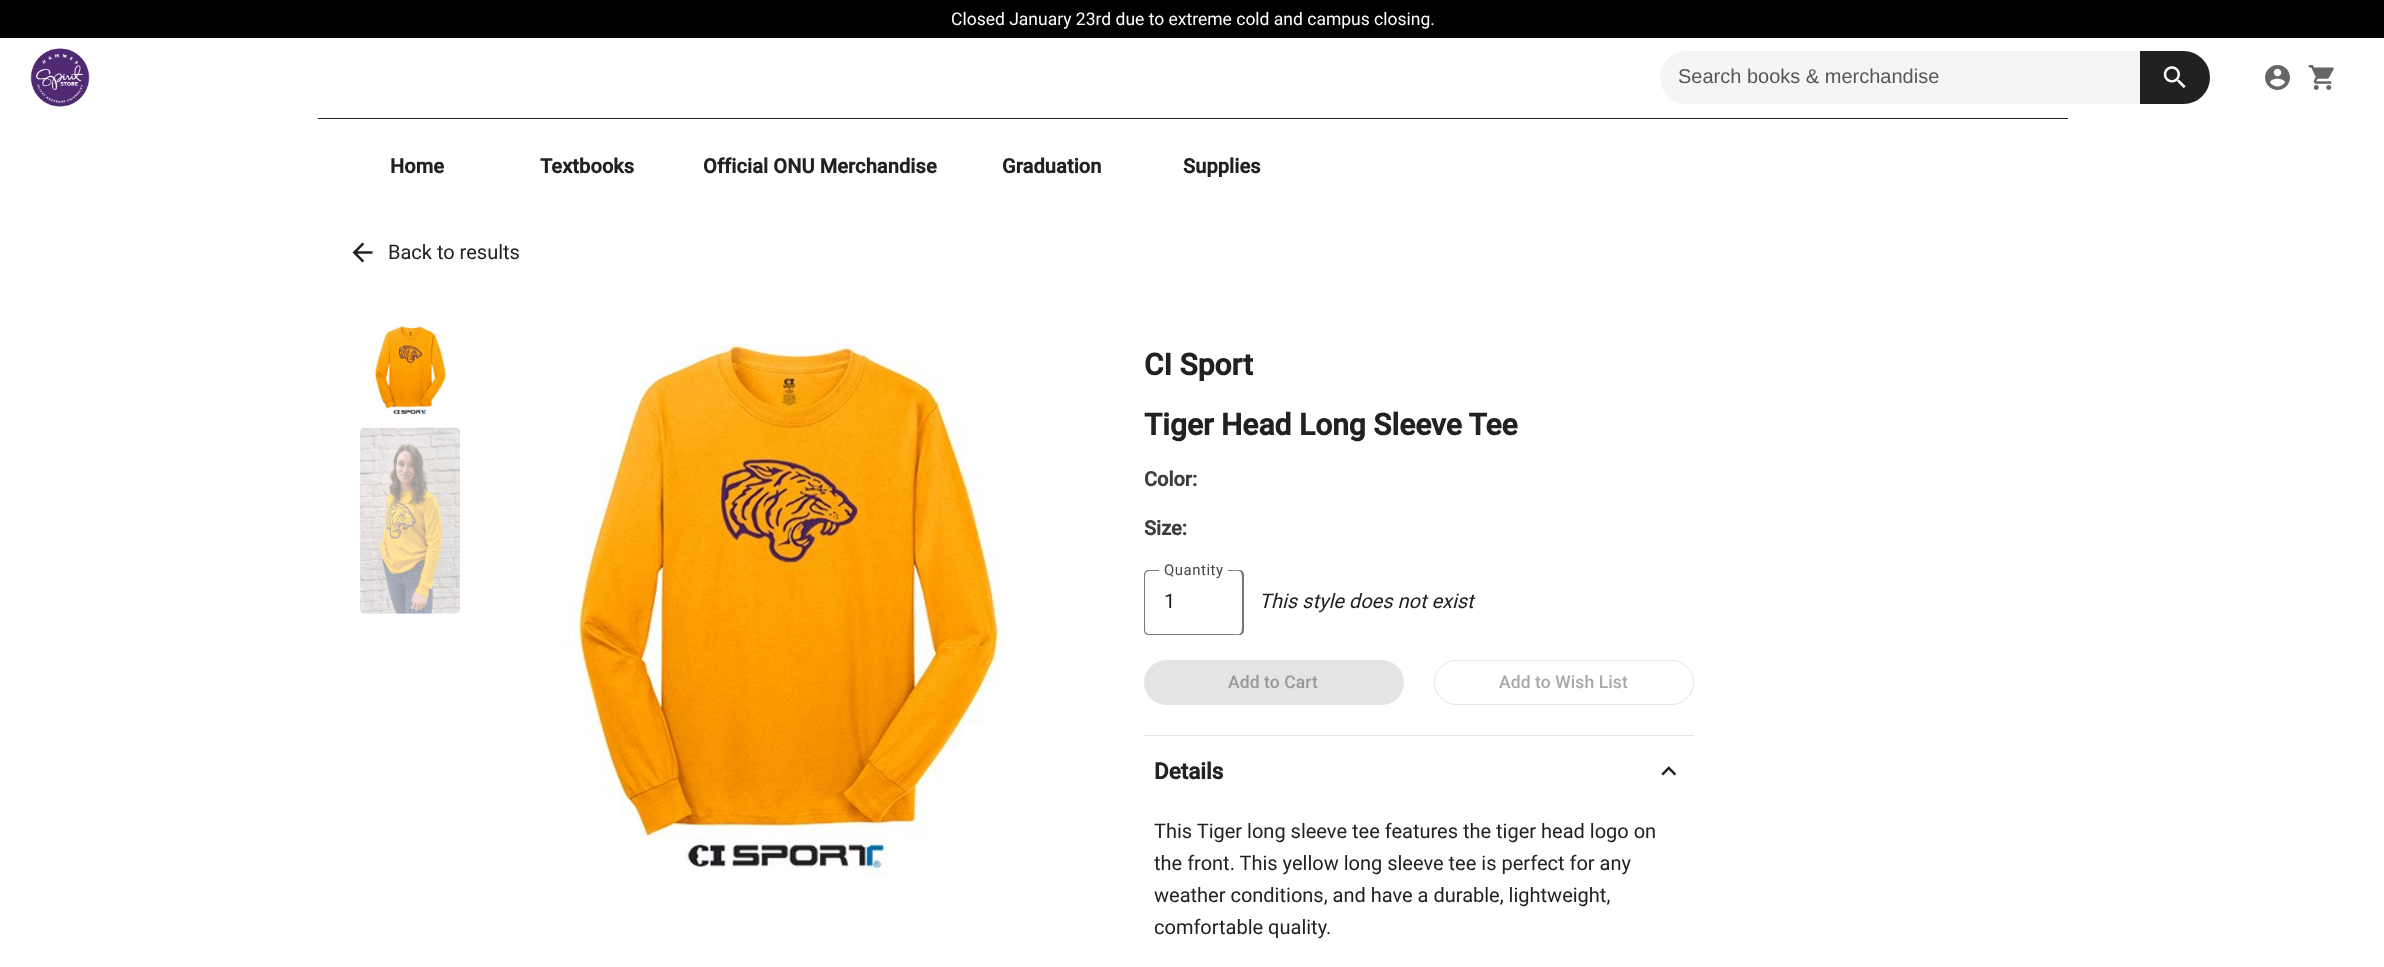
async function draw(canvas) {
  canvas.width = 2384;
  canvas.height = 967;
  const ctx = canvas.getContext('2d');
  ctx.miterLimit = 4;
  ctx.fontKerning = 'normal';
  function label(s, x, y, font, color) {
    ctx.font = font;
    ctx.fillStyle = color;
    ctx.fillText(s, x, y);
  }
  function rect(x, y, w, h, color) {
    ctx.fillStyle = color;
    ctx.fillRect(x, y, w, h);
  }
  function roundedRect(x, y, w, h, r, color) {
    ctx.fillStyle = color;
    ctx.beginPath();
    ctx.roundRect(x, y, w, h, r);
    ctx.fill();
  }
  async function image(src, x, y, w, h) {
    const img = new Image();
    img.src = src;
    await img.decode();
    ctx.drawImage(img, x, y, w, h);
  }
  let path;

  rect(0, 0, 2384, 967, '#fff');
  rect(0, 0, 2384, 38, '#000');
  label('Closed January 23rd due to extreme cold and campus closing.', 951, 25, '17.5px Roboto', '#fff');
  await image('assets/img1.png', 30, 48, 60, 59);
  roundedRect(1660, 51, 550, 53, 26.5, '#f5f5f5');
  label('Search books & merchandise', 1678, 83, '20px Liberation Sans', '#565656');
  ctx.fillStyle = '#212121';
  ctx.beginPath();
  ctx.roundRect(2140, 51, 70, 53, [0, 26.5, 26.5, 0]);
  ctx.fill();
  await image('assets/img2.png', 2163, 66, 23, 22);
  await image('assets/img3.png', 2265, 65, 25, 25);
  await image('assets/img4.png', 2308, 65, 26, 25);
  rect(318, 118, 1750, 1, '#212121');
  ctx.letterSpacing = '0.1px';
  label('Home', 390, 173, 'bold 20px Roboto', '#212121');
  label('Textbooks', 540, 173, 'bold 20px Roboto', '#212121');
  label('Official ONU Merchandise', 703, 173, 'bold 20px Roboto', '#212121');
  label('Graduation', 1002, 173, 'bold 20px Roboto', '#212121');
  label('Supplies', 1183, 173, 'bold 20px Roboto', '#212121');
  await image('assets/img5.png', 352, 242, 21, 21);
  ctx.letterSpacing = '0px';
  label('Back to results', 388, 259, '20px Roboto', '#212121');
  await image('assets/img6.png', 374, 326, 72, 89);
  await image('assets/img7.png', 360, 427, 100, 187);
  await image('assets/img8.png', 564, 341, 439, 535);
  label('CI Sport', 1144, 375, 'bold 30px Roboto', '#212121');
  label('Tiger Head Long Sleeve Tee', 1144, 435, 'bold 30px Roboto', '#212121');
  label('Color:', 1144, 486, 'bold 20px Roboto', '#3e3e3e');
  label('Size:', 1144, 535, 'bold 20px Roboto', '#3e3e3e');
  ctx.fillStyle = '#777';
  path = new Path2D('M1149 570H1159V635H1149C1146 635 1144 633 1144 630V575C1144 572 1146 570 1149 570ZM1149 571H1159V634H1149C1147 634 1145 632 1145 630V575C1145 573 1147 571 1149 571Z');
  ctx.fill(path, 'evenodd');
  path = new Path2D('M1228 635H1158L1159 634H1228Z');
  ctx.fill(path);
  ctx.letterSpacing = '0.5px';
  label('Quantity', 1164, 575, '15px Roboto', '#474747');
  ctx.fillStyle = '#777';
  path = new Path2D('M1228 570H1239C1242 570 1244 572 1244 575V630C1244 633 1242 635 1239 635H1228ZM1228 571C1242 571 1242 568 1242 584V621C1242 637 1242 634 1228 634Z');
  ctx.fill(path, 'evenodd');
  ctx.letterSpacing = '1px';
  label('1', 1164, 608, '20px Roboto', '#1b1b1b');
  ctx.letterSpacing = '0px';
  label('This style does not exist', 1259, 608, 'italic 20px Roboto', '#212121');
  roundedRect(1144, 660, 260, 45, 22.5, '#e4e4e4');
  ctx.letterSpacing = '0.1px';
  label('Add to Cart', 1228, 688, '500 17.5px Roboto', '#989898');
  ctx.beginPath();
  ctx.roundRect(1434.5, 660.5, 259, 44, 22);
  ctx.strokeStyle = '#e4e4e4';
  ctx.stroke();
  label('Add to Wish List', 1499, 688, '500 17.5px Roboto', '#a8a8a8');
  rect(1144, 735, 550, 1, '#e6e6e6');
  ctx.letterSpacing = '0px';
  label('Details', 1154, 779, 'bold 22.5px Roboto', '#212121');
  await image('assets/img9.png', 1661, 766, 16, 10);
  label('This Tiger long sleeve tee features the tiger head logo on', 1154, 838, '20px Roboto', '#212121');
  label('the front. This yellow long sleeve tee is perfect for any', 1154, 870, '20px Roboto', '#212121');
  label('weather conditions, and have a durable, lightweight,', 1154, 902, '20px Roboto', '#212121');
  label('comfortable quality.', 1154, 934, '20px Roboto', '#212121');
}

draw(document.querySelector('canvas'));
